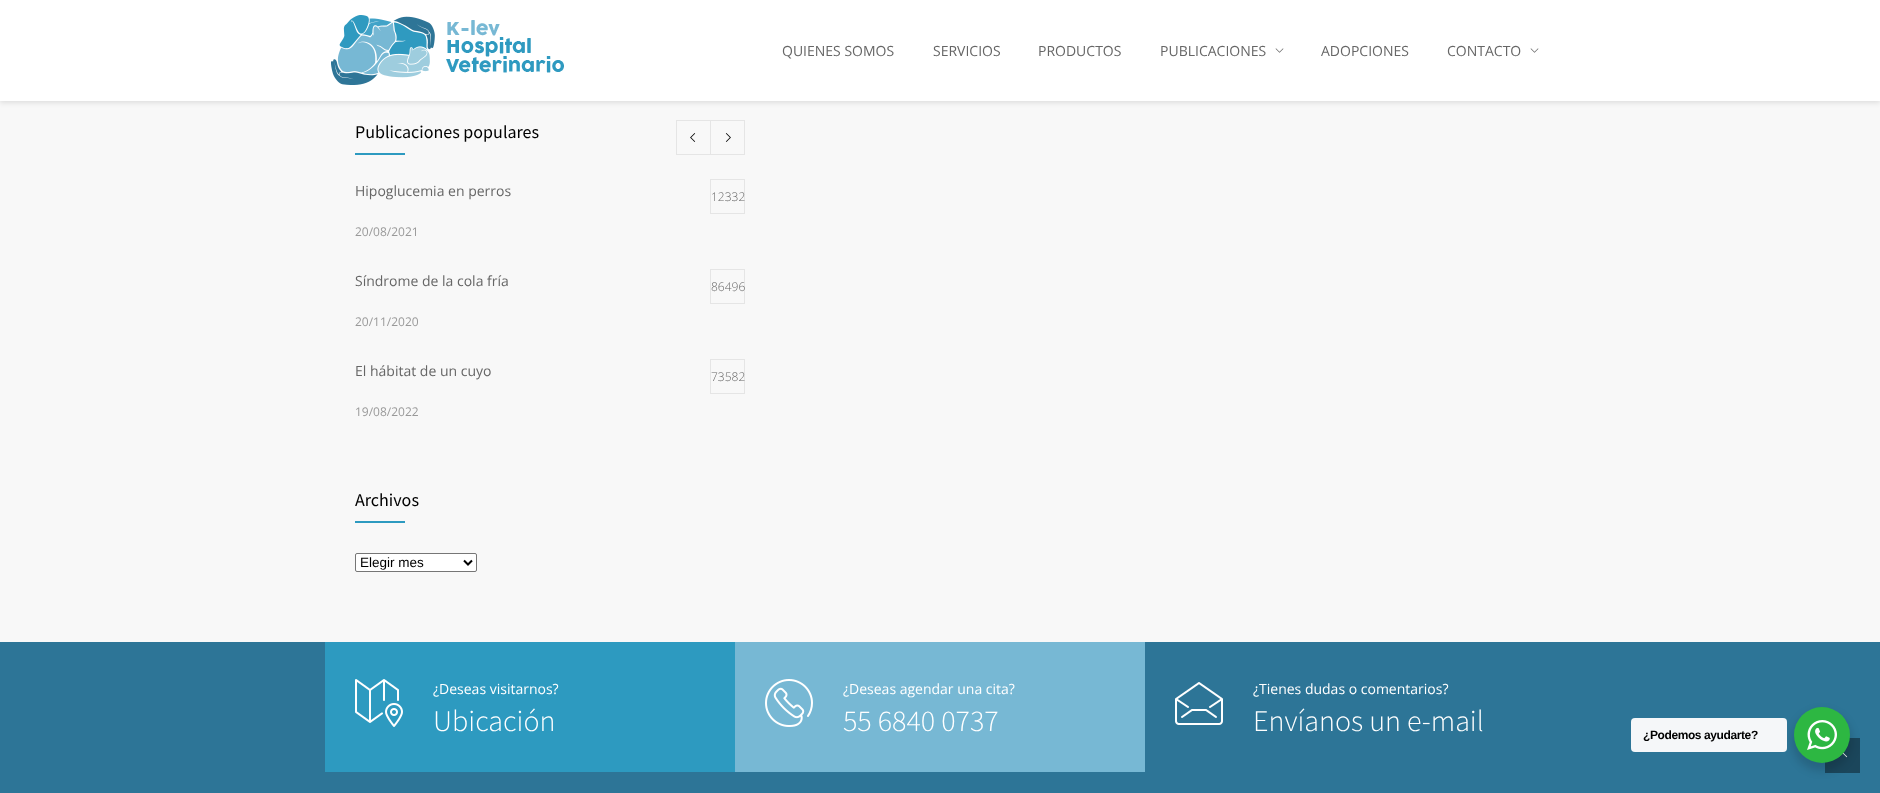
async function draw(canvas) {
  canvas.width = 1880;
  canvas.height = 793;
  const ctx = canvas.getContext('2d');
  ctx.miterLimit = 4;
  ctx.fontKerning = 'normal';
  function label(s, x, y, font, color) {
    ctx.font = font;
    ctx.fillStyle = color;
    ctx.fillText(s, x, y);
  }
  function rect(x, y, w, h, color) {
    ctx.fillStyle = color;
    ctx.fillRect(x, y, w, h);
  }
  function roundedRect(x, y, w, h, r, color) {
    ctx.fillStyle = color;
    ctx.beginPath();
    ctx.roundRect(x, y, w, h, r);
    ctx.fill();
  }
  async function image(src, x, y, w, h) {
    const img = new Image();
    img.src = src;
    await img.decode();
    ctx.drawImage(img, x, y, w, h);
  }
  let path;

  rect(0, 0, 1880, 793, '#f8f8f8');
  ctx.fillStyle = '#0000001a';
  ctx.filter = 'blur(2.5px)';
  ctx.beginPath();
  ctx.rect(0, 2, 1880, 101);
  ctx.fill();
  ctx.filter = 'none';
  rect(0, 0, 1880, 101, '#fff');
  await image('assets/img1.png', 331, 15, 233, 70);
  label('QUIENES SOMOS', 782, 56, '14px Open Sans', '#666');
  label('SERVICIOS', 933, 56, '14px Open Sans', '#666');
  label('PRODUCTOS', 1038, 56, '14px Open Sans', '#666');
  label('PUBLICACIONES', 1160, 56, '14px Open Sans', '#666');
  await image('assets/img2.png', 1275, 48, 9, 5);
  label('ADOPCIONES', 1321, 56, '14px Open Sans', '#666');
  label('CONTACTO', 1447, 56, '14px Open Sans', '#666');
  await image('assets/img2.png', 1530, 48, 9, 5);
  label('Publicaciones populares', 355, 138, '18px Source Sans Pro', '#000');
  rect(355, 153, 50, 2, '#2d9ac0');
  ctx.strokeStyle = '#e5e5e5';
  ctx.strokeRect(676.5, 120.5, 34, 34);
  await image('assets/img3.png', 690, 133, 6, 9);
  ctx.strokeRect(710.5, 120.5, 34, 34);
  await image('assets/img4.png', 725, 133, 6, 9);
  label('Hipoglucemia en perros', 355, 196, '14px Open Sans', '#666');
  ctx.strokeRect(710.5, 179.5, 34, 34);
  label('12332', 711, 201, '300 12px Open Sans', '#666');
  label('20/08/2021', 355, 236, '12px Open Sans', '#999');
  label('Síndrome de la cola fría', 355, 286, '14px Open Sans', '#666');
  ctx.strokeRect(710.5, 269.5, 34, 34);
  label('86496', 711, 291, '300 12px Open Sans', '#666');
  label('20/11/2020', 355, 326, '12px Open Sans', '#999');
  label('El hábitat de un cuyo', 355, 376, '14px Open Sans', '#666');
  ctx.strokeRect(710.5, 359.5, 34, 34);
  label('73582', 711, 381, '300 12px Open Sans', '#666');
  label('19/08/2022', 355, 416, '12px Open Sans', '#999');
  label('Archivos', 355, 506, '18px Source Sans Pro', '#000');
  rect(355, 521, 50, 2, '#2d9ac0');
  ctx.fillStyle = '#fff';
  ctx.beginPath();
  ctx.roundRect(355.5, 553.5, 121, 18, 1.5);
  ctx.fill();
  ctx.strokeStyle = '#767676';
  ctx.stroke();
  path = new Path2D('M464 560.5L468 564.5L472 560.5');
  ctx.strokeStyle = '#000';
  ctx.lineWidth = 2;
  ctx.stroke(path);
  label('Elegir mes', 360, 567, '13.5px Liberation Sans', '#000');
  rect(0, 642, 1880, 151, '#2d7597');
  rect(325, 642, 410, 130, '#2d9ac0');
  await image('assets/img5.png', 355, 679, 48, 48);
  label('¿Deseas visitarnos?', 433, 694, '14px Open Sans', '#fff');
  label('Ubicación', 433, 731, '300 30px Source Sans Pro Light', '#fff');
  rect(735, 642, 410, 130, '#77b8d4');
  await image('assets/img6.png', 765, 679, 48, 48);
  label('¿Deseas agendar una cita?', 843, 694, '14px Open Sans', '#fff');
  label('55 6840 0737', 843, 731, '300 30px Source Sans Pro Light', '#fff');
  await image('assets/img7.png', 1175, 682, 48, 43);
  label('¿Tienes dudas o comentarios?', 1253, 694, '14px Open Sans', '#fff');
  label('Envíanos un e-mail', 1253, 731, '300 30px Source Sans Pro Light', '#fff');
  rect(1825, 738, 35, 35, '#1b465b');
  await image('assets/img9.png', 1838, 752, 10, 6);
  ctx.fillStyle = '#00000024';
  ctx.filter = 'blur(4px)';
  ctx.beginPath();
  ctx.roundRect(1792, 711, 60, 60, 30);
  ctx.fill();
  ctx.filter = 'none';
  roundedRect(1631, 718, 156, 34, 4, '#f5f7f9');
  ctx.letterSpacing = '-0.4px';
  label('¿Podemos ayudarte?', 1643, 739, 'bold 12px Liberation Sans', '#000');
  ctx.fillStyle = '#2db742';
  ctx.beginPath();
  ctx.arc(1822, 735, 28, 0, 2 * Math.PI);
  ctx.fill();
  await image('assets/img8.png', 1807, 720, 30, 30);
}

draw(document.querySelector('canvas'));
